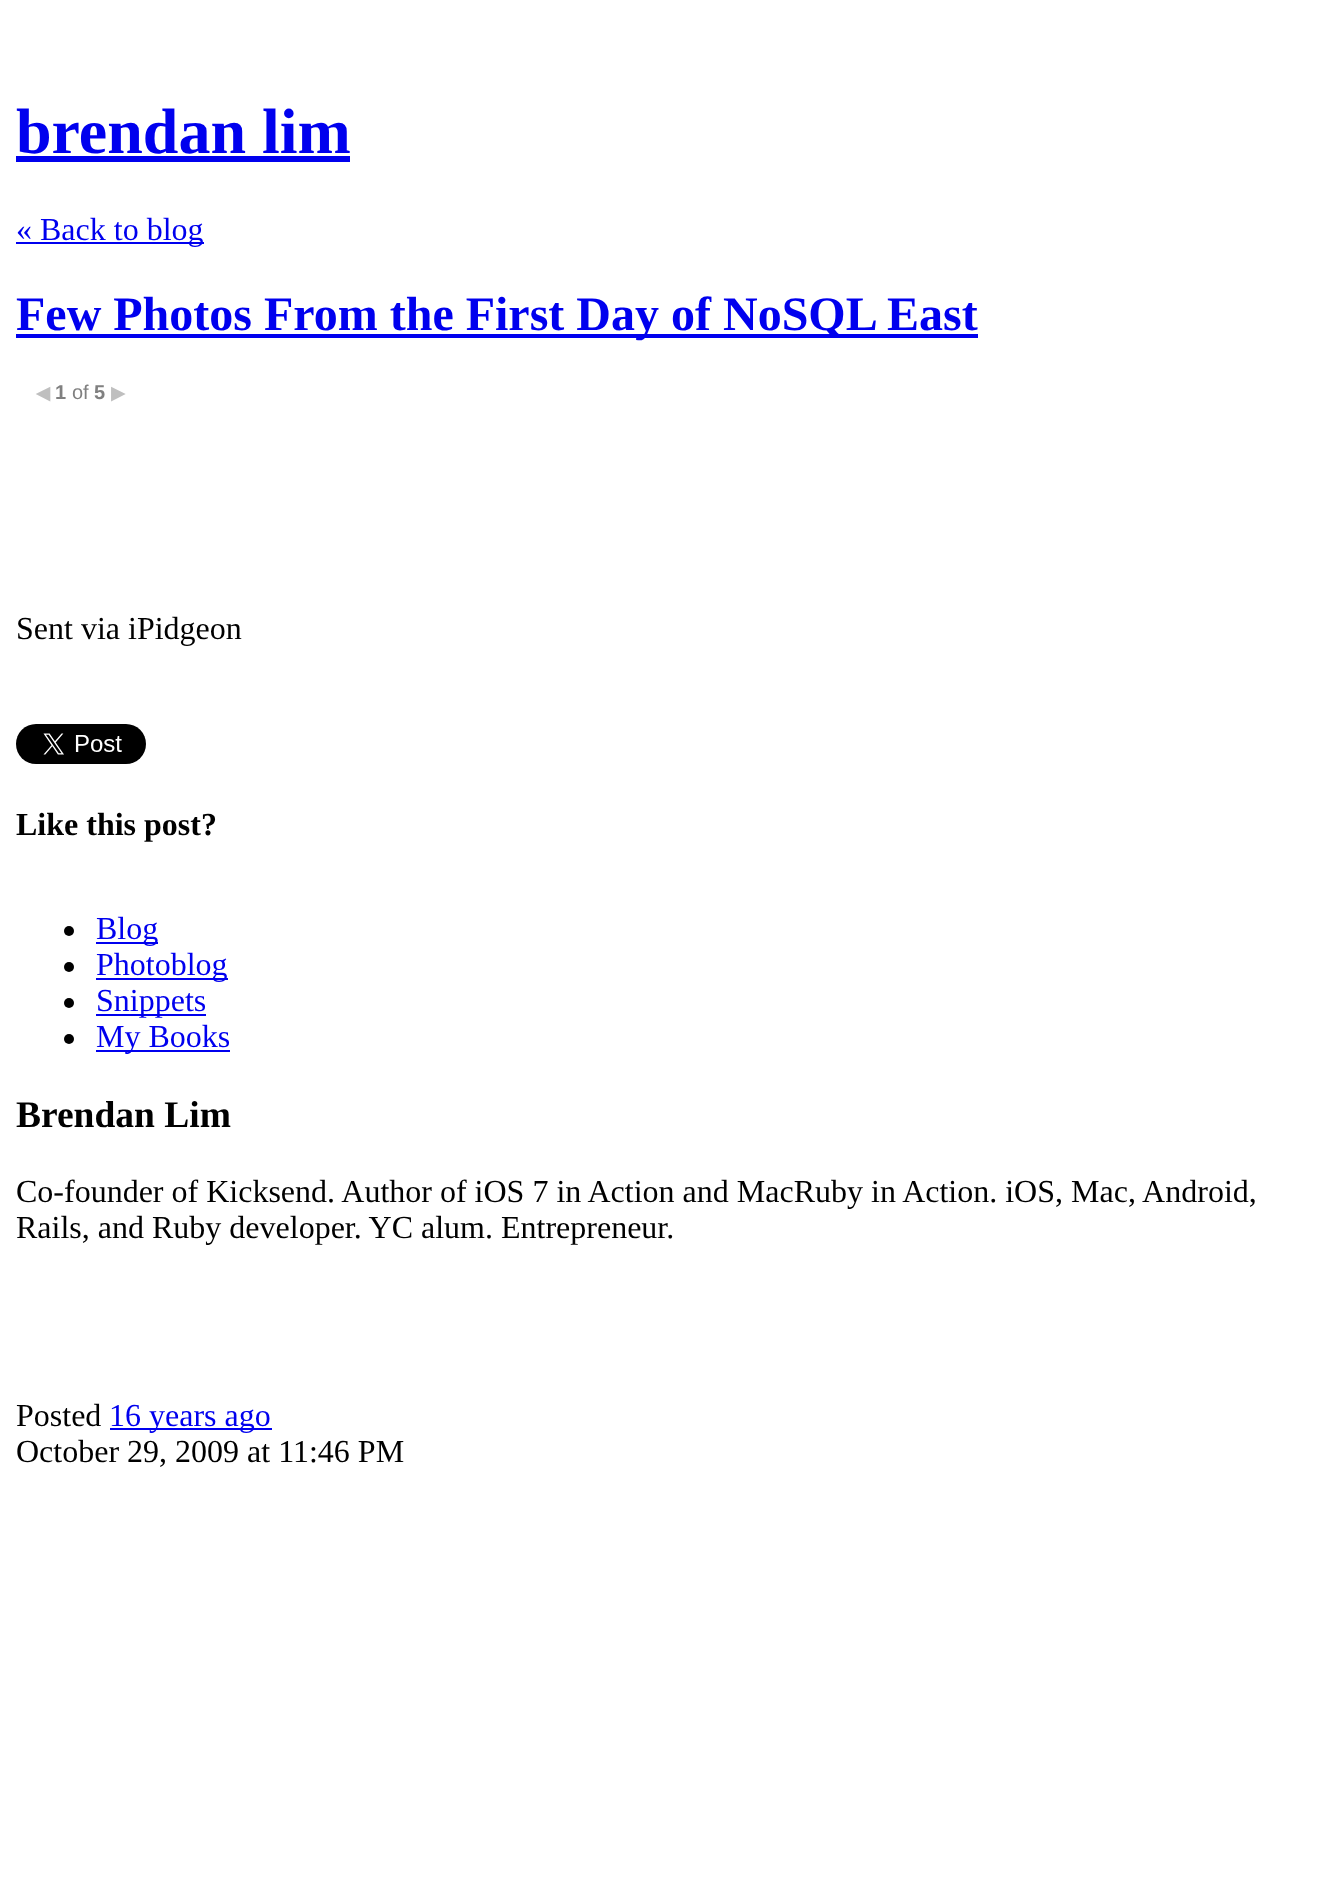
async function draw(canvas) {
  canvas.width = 1317;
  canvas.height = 1896;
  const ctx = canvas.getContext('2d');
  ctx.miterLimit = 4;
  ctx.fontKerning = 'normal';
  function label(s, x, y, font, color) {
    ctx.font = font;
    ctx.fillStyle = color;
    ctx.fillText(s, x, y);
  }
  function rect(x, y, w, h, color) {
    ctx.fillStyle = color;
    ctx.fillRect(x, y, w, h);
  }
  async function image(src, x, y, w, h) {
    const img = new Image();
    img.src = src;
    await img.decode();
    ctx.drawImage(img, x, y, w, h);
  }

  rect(0, 0, 1317, 1896, '#fff');
  label('brendan lim', 16, 153, 'bold 64px Liberation Serif', '#00e');
  rect(16, 156, 334, 6, '#00e');
  rect(16, 242, 188, 2, '#00e');
  label('« Back to blog', 16, 240, '32px Liberation Serif', '#00e');
  rect(16, 334, 962, 4, '#00e');
  label('Few Photos From the First Day of NoSQL East', 16, 330, 'bold 48px Liberation Serif', '#00e');
  label('◀', 36, 399, 'bold 18px DejaVu Sans', '#bfbfbf');
  label('1', 55, 399, 'bold 20px Liberation Sans', '#808080');
  label('of', 72, 399, '20px Liberation Sans', '#808080');
  label('5', 94, 399, 'bold 20px Liberation Sans', '#808080');
  label('▶', 111, 399, 'bold 18px DejaVu Sans', '#bfbfbf');
  label('Sent via iPidgeon', 16, 639, '32px Liberation Serif', '#000');
  await image('assets/img1.png', 16, 724, 130, 40);
  label('Like this post?', 16, 835, 'bold 32px Liberation Serif', '#000');
  ctx.beginPath();
  ctx.arc(69, 931, 5, 0, 2 * Math.PI);
  ctx.fill();
  rect(96, 942, 62, 2, '#00e');
  label('Blog', 96, 939, '32px Liberation Serif', '#00e');
  ctx.fillStyle = '#000';
  ctx.beginPath();
  ctx.arc(69, 967, 5, 0, 2 * Math.PI);
  ctx.fill();
  rect(96, 978, 132, 2, '#00e');
  label('Photoblog', 96, 975, '32px Liberation Serif', '#00e');
  ctx.fillStyle = '#000';
  ctx.beginPath();
  ctx.arc(69, 1003, 5, 0, 2 * Math.PI);
  ctx.fill();
  rect(96, 1014, 110, 2, '#00e');
  label('Snippets', 96, 1011, '32px Liberation Serif', '#00e');
  ctx.fillStyle = '#000';
  ctx.beginPath();
  ctx.arc(69, 1039, 5, 0, 2 * Math.PI);
  ctx.fill();
  rect(96, 1050, 134, 2, '#00e');
  label('My Books', 96, 1047, '32px Liberation Serif', '#00e');
  label('Brendan Lim', 16, 1127, 'bold 37.5px Liberation Serif', '#000');
  label('Co-founder of Kicksend. Author of iOS 7 in Action and MacRuby in Action. iOS, Mac, Android,', 16, 1202, '32px Liberation Serif', '#000');
  label('Rails, and Ruby developer. YC alum. Entrepreneur.', 16, 1238, '32px Liberation Serif', '#000');
  label('Posted', 16, 1426, '32px Liberation Serif', '#000');
  rect(110, 1428, 162, 2, '#00e');
  label('16 years ago', 109, 1426, '32px Liberation Serif', '#00e');
  label('October 29, 2009 at 11:46 PM', 16, 1462, '32px Liberation Serif', '#000');
}

draw(document.querySelector('canvas'));
